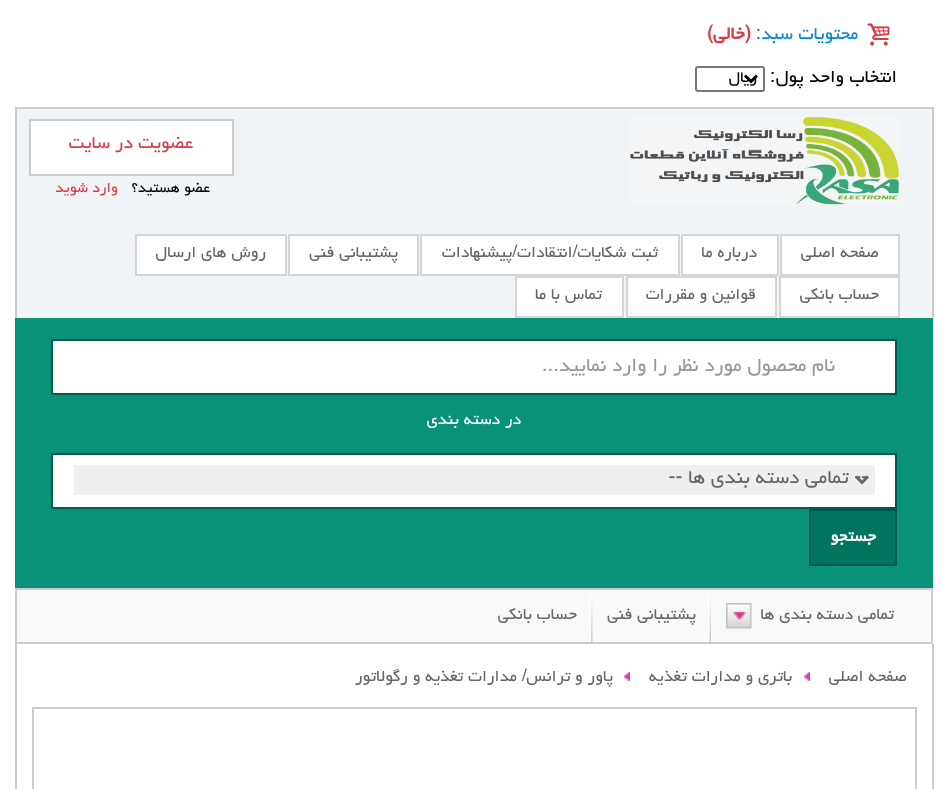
async function draw(canvas) {
  canvas.width = 948;
  canvas.height = 789;
  const ctx = canvas.getContext('2d');
  ctx.miterLimit = 4;
  ctx.fontKerning = 'normal';
  function label(s, x, y, font, color) {
    ctx.font = font;
    ctx.fillStyle = color;
    ctx.fillText(s, x, y);
  }
  function rect(x, y, w, h, color) {
    ctx.fillStyle = color;
    ctx.fillRect(x, y, w, h);
  }
  async function image(src, x, y, w, h) {
    const img = new Image();
    img.src = src;
    await img.decode();
    ctx.drawImage(img, x, y, w, h);
  }
  let path;

  rect(0, 0, 948, 789, '#fff');
  await image('assets/img1.png', 867, 23, 23, 23);
  ctx.direction = 'rtl';
  label('محتویات سبد:', 858, 39, '21.5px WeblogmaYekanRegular', '#0087d5');
  label('(خالی)', 751, 39, 'bold 21.5px WeblogmaYekanRegular', '#d93c45');
  label('انتخاب واحد پول:', 897, 82, '21.5px WeblogmaYekanRegular', '#000');
  ctx.beginPath();
  ctx.roundRect(696, 67, 68, 24, 2);
  ctx.strokeStyle = '#767676';
  ctx.lineWidth = 2;
  ctx.stroke();
  path = new Path2D('M745 75.5L751 81.5L757 75.5');
  ctx.strokeStyle = '#000';
  ctx.lineWidth = 3;
  ctx.stroke(path);
  label('ریال', 757, 82, '19px WeblogmaYekanRegular', '#000');
  rect(17, 109, 915, 209, '#f0f4f7');
  rect(15, 107, 918, 2, '#ccc');
  rect(932, 107, 2, 211, '#ccc');
  rect(15, 107, 2, 211, '#ccc');
  await image('assets/img2.png', 629, 116, 271, 89);
  ctx.fillStyle = '#fff';
  ctx.beginPath();
  ctx.rect(30, 120, 203, 55);
  ctx.fill();
  ctx.strokeStyle = '#ccc';
  ctx.lineWidth = 2;
  ctx.stroke();
  label('عضویت در سایت', 193, 148, '21.5px WeblogmaYekanRegular', '#d93c45');
  label('عضو هستید؟', 210, 192, '17.5px WeblogmaYekanRegular', '#000');
  label('وارد شوید', 118, 192, '17.5px WeblogmaYekanRegular', '#d93c45');
  ctx.fillStyle = '#fff';
  ctx.beginPath();
  ctx.rect(781, 235, 118, 40);
  ctx.fill();
  ctx.strokeStyle = '#d5d5d5';
  ctx.stroke();
  label('صفحه اصلی', 879, 257, '19.5px WeblogmaYekanRegular', '#666');
  ctx.fillStyle = '#fff';
  ctx.beginPath();
  ctx.rect(682, 235, 96, 40);
  ctx.fill();
  ctx.stroke();
  label('درباره ما', 757, 257, '19.5px WeblogmaYekanRegular', '#666');
  ctx.fillStyle = '#fff';
  ctx.beginPath();
  ctx.rect(421, 235, 258, 40);
  ctx.fill();
  ctx.stroke();
  label('ثبت شکایات/انتقادات/پیشنهادات', 658, 257, '19.5px WeblogmaYekanRegular', '#666');
  ctx.fillStyle = '#fff';
  ctx.beginPath();
  ctx.rect(289, 235, 129, 40);
  ctx.fill();
  ctx.stroke();
  label('پشتیبانی فنی', 398, 257, '19.5px WeblogmaYekanRegular', '#666');
  ctx.fillStyle = '#fff';
  ctx.beginPath();
  ctx.rect(136, 235, 150, 40);
  ctx.fill();
  ctx.stroke();
  label('روش های ارسال', 266, 257, '19.5px WeblogmaYekanRegular', '#666');
  ctx.fillStyle = '#fff';
  ctx.beginPath();
  ctx.rect(780, 277, 119, 40);
  ctx.fill();
  ctx.stroke();
  label('حساب بانکی', 879, 299, '19.5px WeblogmaYekanRegular', '#666');
  ctx.fillStyle = '#fff';
  ctx.beginPath();
  ctx.rect(627, 277, 149, 40);
  ctx.fill();
  ctx.stroke();
  label('قوانین و مقررات', 756, 299, '19.5px WeblogmaYekanRegular', '#666');
  ctx.fillStyle = '#fff';
  ctx.beginPath();
  ctx.rect(516, 277, 107, 40);
  ctx.fill();
  ctx.stroke();
  label('تماس با ما', 602, 299, '19.5px WeblogmaYekanRegular', '#666');
  rect(15, 318, 918, 270, '#089277');
  ctx.fillStyle = '#fff';
  ctx.beginPath();
  ctx.rect(52, 340, 844, 54);
  ctx.fill();
  ctx.strokeStyle = '#005a48';
  ctx.stroke();
  label('نام محصول مورد نظر را وارد نمایید...', 835, 371, '23.4px WeblogmaYekanRegular', '#999');
  label('در دسته بندی', 521, 424, '19.5px WeblogmaYekanRegular', '#fff');
  ctx.beginPath();
  ctx.rect(52, 454, 844, 54);
  ctx.fill();
  ctx.stroke();
  rect(74, 465, 801, 30, '#efefef');
  path = new Path2D('M856 476.5L862 482.5L868 476.5');
  ctx.strokeStyle = '#666';
  ctx.lineWidth = 3;
  ctx.stroke(path);
  label('-- تمامی دسته بندی ها --', 868, 483, '23.4px WeblogmaYekanRegular', '#666');
  ctx.fillStyle = '#01745d';
  ctx.beginPath();
  ctx.rect(810, 510, 86, 55);
  ctx.fill();
  ctx.strokeStyle = '#005a48';
  ctx.lineWidth = 2;
  ctx.stroke();
  label('جستجو', 876, 541, 'bold 19.5px WeblogmaYekanRegular', '#fff');
  ctx.fillStyle = '#f7f9fa';
  ctx.beginPath();
  ctx.rect(16, 589, 916, 54);
  ctx.fill();
  ctx.strokeStyle = '#ccc';
  ctx.stroke();
  await image('assets/img3.png', 726, 603, 26, 26);
  label('تمامی دسته بندی ها', 894, 619, '19.5px WeblogmaYekanRegular', '#666');
  await image('assets/img4.png', 708, 594, 3, 48);
  label('پشتیبانی فنی', 696, 619, '19.5px WeblogmaYekanRegular', '#666');
  await image('assets/img5.png', 589, 594, 4, 48);
  label('حساب بانکی', 577, 619, '19.5px WeblogmaYekanRegular', '#666');
  rect(932, 644, 2, 145, '#ccc');
  rect(15, 644, 2, 145, '#ccc');
  label('صفحه اصلی', 907, 681, '19.5px WeblogmaYekanRegular', '#666');
  await image('assets/img6.png', 804, 672, 6, 9);
  label('باتری و مدارات تغذیه', 792, 681, '19.5px WeblogmaYekanRegular', '#666');
  await image('assets/img6.png', 624, 672, 6, 9);
  label('پاور و ترانس/ مدارات تغذیه و رگولاتور', 613, 681, '19.5px WeblogmaYekanRegular', '#666');
  ctx.strokeRect(33, 708, 883, 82);
}

draw(document.querySelector('canvas'));
